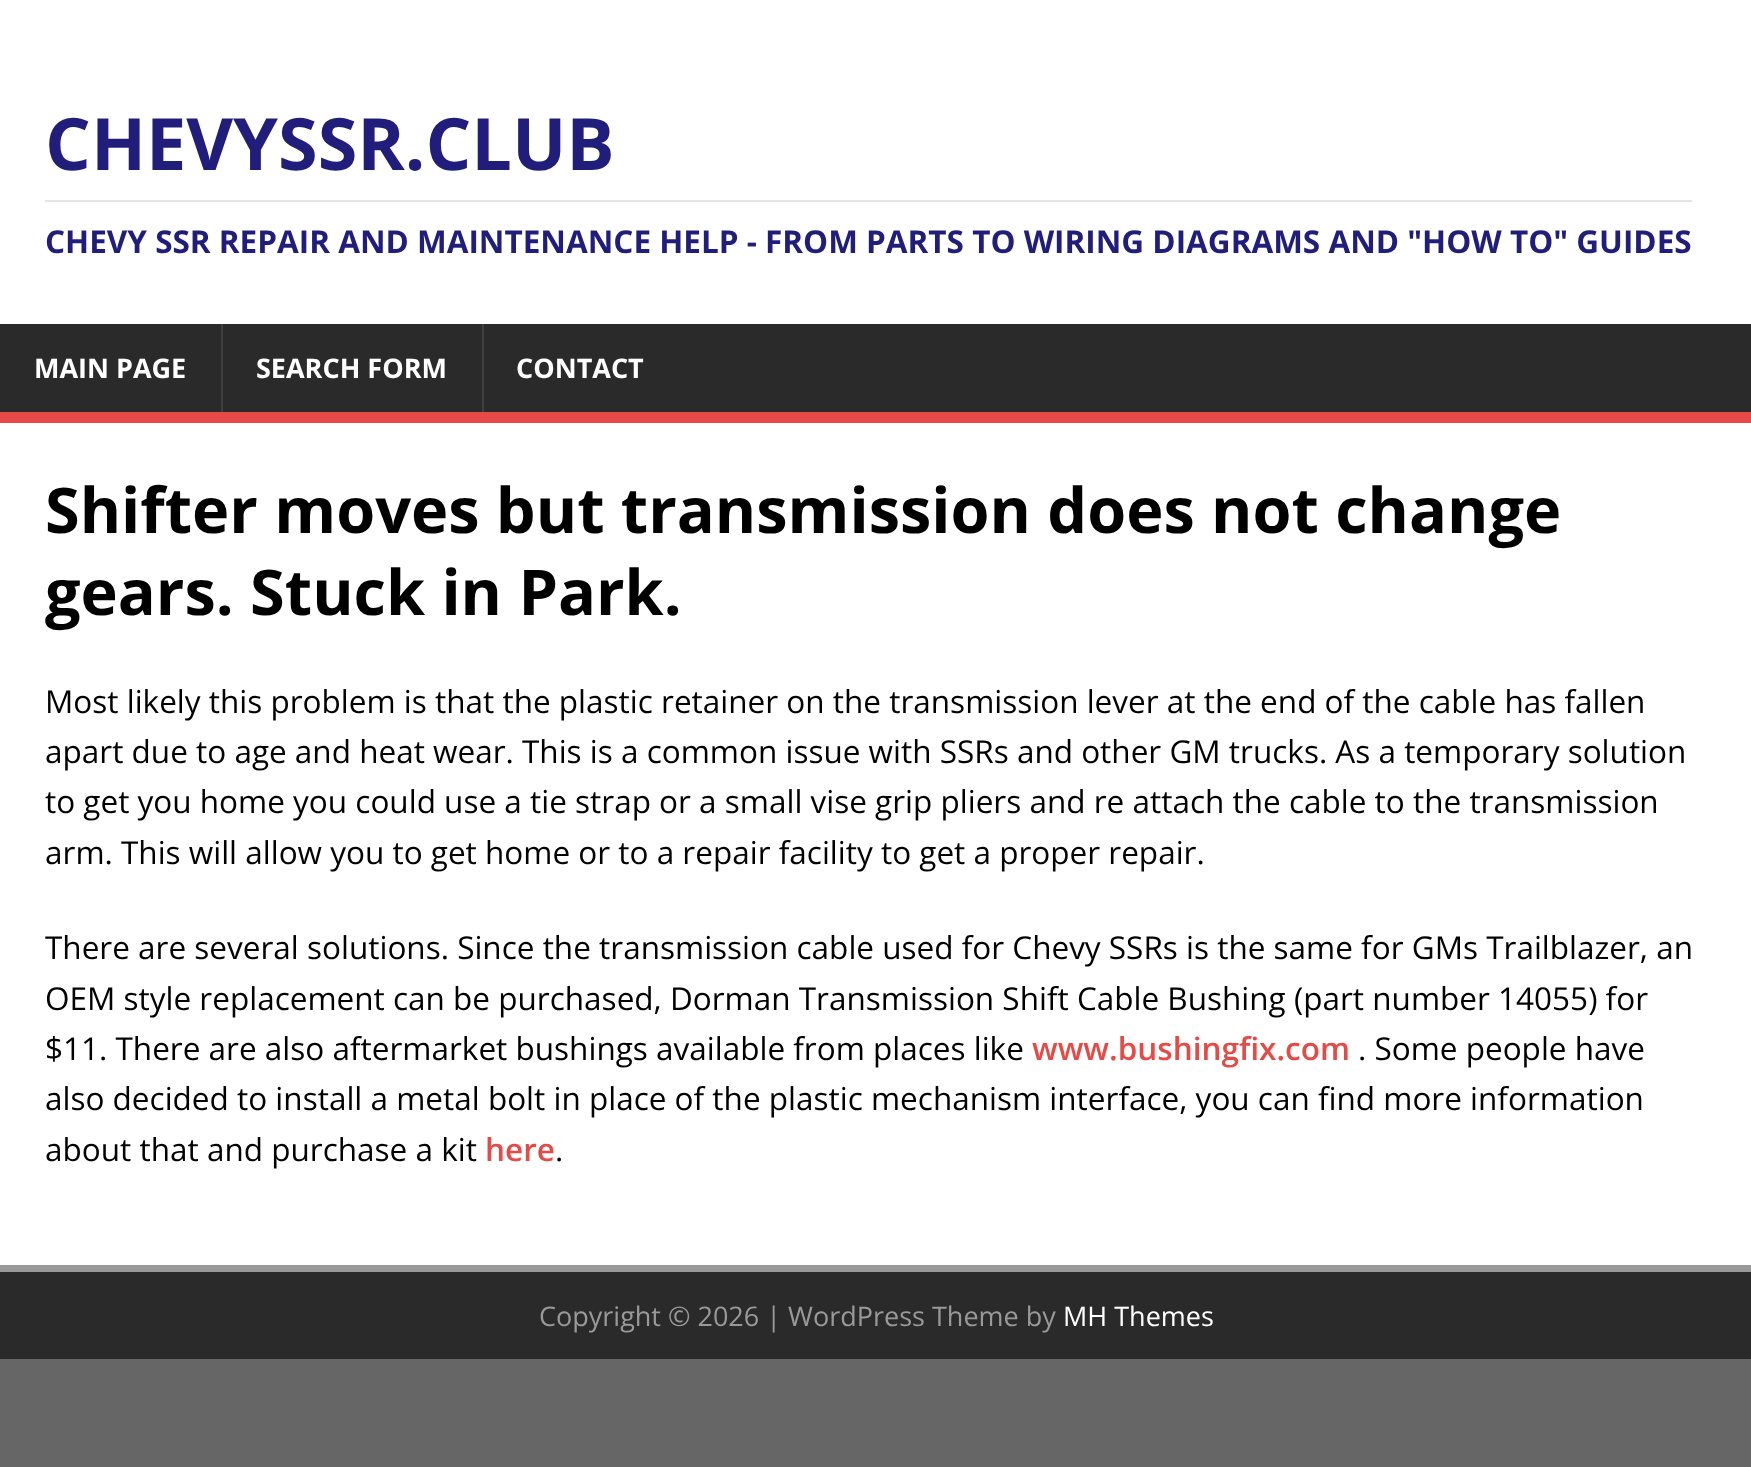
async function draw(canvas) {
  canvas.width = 1751;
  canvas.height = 1467;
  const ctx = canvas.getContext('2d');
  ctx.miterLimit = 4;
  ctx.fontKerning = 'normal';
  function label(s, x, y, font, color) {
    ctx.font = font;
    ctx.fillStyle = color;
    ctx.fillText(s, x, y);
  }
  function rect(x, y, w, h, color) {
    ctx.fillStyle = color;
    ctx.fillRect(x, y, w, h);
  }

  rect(0, 0, 1751, 1467, '#666');
  rect(0, 0, 1751, 324, '#fff');
  label('CHEVYSSR.CLUB', 45, 170, 'bold 72px Open Sans', '#201e7a');
  rect(45, 200, 1647, 2, '#e5e5e5');
  label('CHEVY SSR REPAIR AND MAINTENANCE HELP - FROM PARTS TO WIRING DIAGRAMS AND "HOW TO" GUIDES', 45, 253, 'bold 31.5px Open Sans', '#201e7a');
  rect(0, 324, 1751, 88, '#2a2a2a');
  rect(0, 412, 1751, 11, '#e64946');
  label('MAIN PAGE', 34, 378, 'bold 27px Open Sans', '#fff');
  rect(221, 324, 2, 88, '#3f3f3f');
  label('SEARCH FORM', 256, 378, 'bold 27px Open Sans', '#fff');
  rect(482, 324, 2, 88, '#3f3f3f');
  label('CONTACT', 516, 378, 'bold 27px Open Sans', '#fff');
  rect(0, 423, 1751, 842, '#fff');
  label('Shifter moves but transmission does not change', 45, 533, 'bold 63px Open Sans', '#000');
  label('gears. Stuck in Park.', 45, 615, 'bold 63px Open Sans', '#000');
  label('Most likely this problem is that the plastic retainer on the transmission lever at the end of the cable has fallen', 45, 713, '31.5px Open Sans', '#000');
  label('apart due to age and heat wear. This is a common issue with SSRs and other GM trucks. As a temporary solution', 45, 763, '31.5px Open Sans', '#000');
  label('to get you home you could use a tie strap or a small vise grip pliers and re attach the cable to the transmission', 45, 813, '31.5px Open Sans', '#000');
  label('arm. This will allow you to get home or to a repair facility to get a proper repair.', 45, 864, '31.5px Open Sans', '#000');
  label('There are several solutions. Since the transmission cable used for Chevy SSRs is the same for GMs Trailblazer, an', 45, 959, '31.5px Open Sans', '#000');
  label('OEM style replacement can be purchased, Dorman Transmission Shift Cable Bushing (part number 14055) for', 45, 1010, '31.5px Open Sans', '#000');
  label('$11. There are also aftermarket bushings available from places like', 45, 1060, '31.5px Open Sans', '#000');
  label('www.bushingfix.com', 1032, 1060, '600 31.5px Open Sans', '#e64946');
  label('. Some people have', 1358, 1060, '31.5px Open Sans', '#000');
  label('also decided to install a metal bolt in place of the plastic mechanism interface, you can find more information', 45, 1110, '31.5px Open Sans', '#000');
  label('about that and purchase a kit', 45, 1161, '31.5px Open Sans', '#000');
  label('here', 485, 1161, '600 31.5px Open Sans', '#e64946');
  label('.', 555, 1161, '31.5px Open Sans', '#000');
  rect(0, 1272, 1751, 87, '#2a2a2a');
  rect(0, 1265, 1751, 7, '#999');
  label('Copyright © 2026 | WordPress Theme by', 539, 1326, '27px Open Sans', '#999');
  label('MH Themes', 1063, 1326, '27px Open Sans', '#fff');
}

draw(document.querySelector('canvas'));
